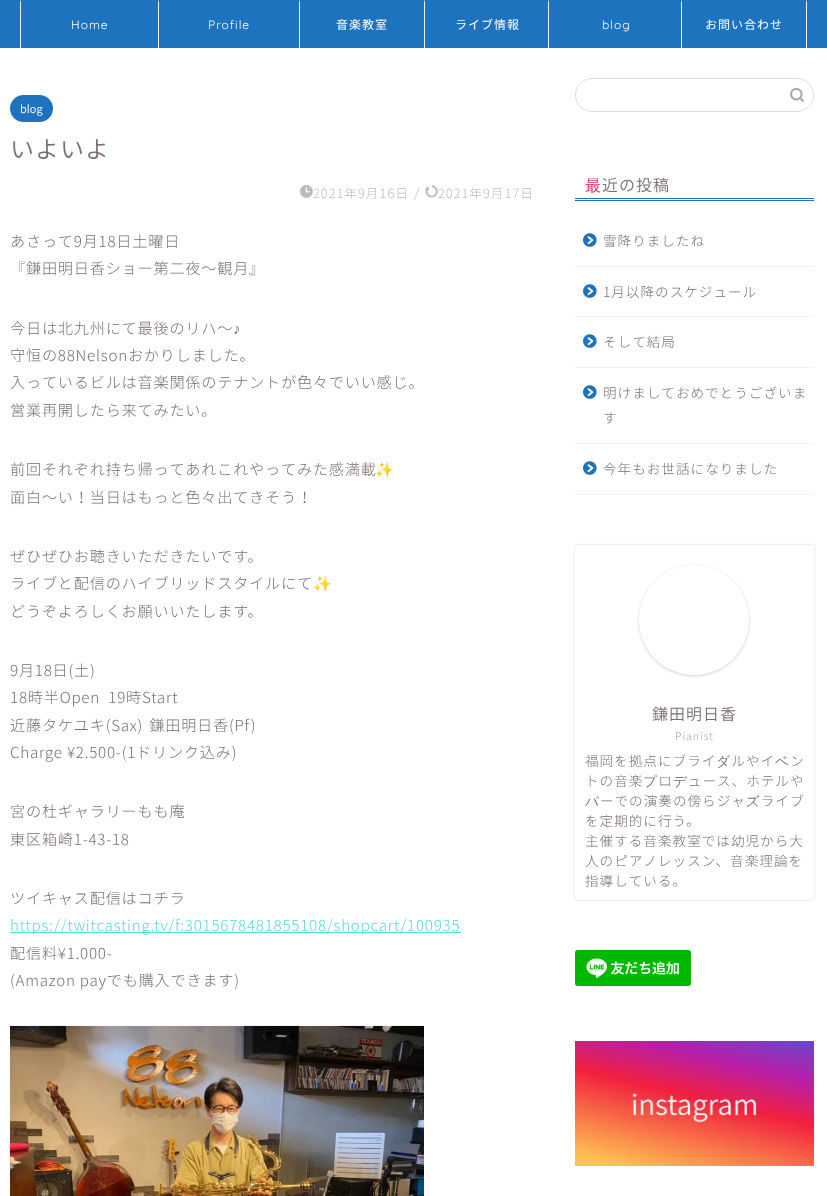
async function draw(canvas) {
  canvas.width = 827;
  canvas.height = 1196;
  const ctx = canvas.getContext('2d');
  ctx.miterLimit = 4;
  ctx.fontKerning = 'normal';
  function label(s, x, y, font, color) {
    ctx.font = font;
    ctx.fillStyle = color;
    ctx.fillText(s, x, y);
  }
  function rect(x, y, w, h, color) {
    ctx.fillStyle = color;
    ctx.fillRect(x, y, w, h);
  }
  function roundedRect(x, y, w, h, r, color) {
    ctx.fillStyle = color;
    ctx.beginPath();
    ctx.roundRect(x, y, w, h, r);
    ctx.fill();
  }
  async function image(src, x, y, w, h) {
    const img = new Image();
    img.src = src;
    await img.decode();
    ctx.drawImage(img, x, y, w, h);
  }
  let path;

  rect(0, 0, 827, 1196, '#fff');
  rect(0, 0, 827, 48, '#1e73be');
  ctx.fillStyle = '#efefef';
  path = new Path2D('M20 48V0L21 2V48Z');
  ctx.fill(path);
  ctx.letterSpacing = '1px';
  label('Home', 71, 29, '300 12px Quicksand', '#fff');
  ctx.fillStyle = '#efefef';
  path = new Path2D('M158 48V0L159 2V48Z');
  ctx.fill(path);
  label('Profile', 208, 29, '300 12px Quicksand', '#fff');
  ctx.fillStyle = '#efefef';
  path = new Path2D('M299 48V0L300 2V48Z');
  ctx.fill(path);
  label('音楽教室', 336, 29, '12px Noto Sans JP', '#fff');
  ctx.fillStyle = '#efefef';
  path = new Path2D('M424 48V0L425 2V48Z');
  ctx.fill(path);
  label('ライブ情報', 455, 29, '12px Noto Sans JP', '#fff');
  ctx.fillStyle = '#efefef';
  path = new Path2D('M548 48V0L549 2V48Z');
  ctx.fill(path);
  label('blog', 602, 29, '300 12px Quicksand', '#fff');
  ctx.fillStyle = '#efefef';
  path = new Path2D('M807 0V48H806V2Z');
  ctx.fill(path);
  path = new Path2D('M681 48V0L682 2V48Z');
  ctx.fill(path);
  label('お問い合わせ', 705, 29, '12px Noto Sans JP', '#fff');
  roundedRect(10, 95, 43, 27, 13.5, '#1e73be');
  ctx.letterSpacing = '0px';
  label('blog', 20, 113, '300 11px Noto Sans JP', '#fff');
  ctx.letterSpacing = '1px';
  label('いよいよ', 10, 158, '300 24px Noto Sans JP', '#7a6e71');
  await image('assets/img1.png', 300, 185, 13, 13);
  label('2021年9月16日', 313, 198, '300 12.75px "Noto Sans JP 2"', '#bbb');
  label('/', 414, 198, '300 12.75px "Noto Sans JP 2"', '#bbb');
  await image('assets/img2.png', 425, 185, 13, 13);
  label('2021年9月17日', 438, 198, '300 12.75px "Noto Sans JP 2"', '#bbb');
  ctx.letterSpacing = '0.75px';
  label('あさって9月18日土曜日', 10, 247, '300 15.2px "Noto Sans JP 2"', '#7a6e71');
  label('『鎌田明日香ショー第二夜〜観月』', 10, 274, '300 15.2px "Noto Sans JP 2"', '#7a6e71');
  label('今日は北九州にて最後のリハ〜', 10, 334, '300 15.2px "Noto Sans JP 2"', '#7a6e71');
  label('♪', 233, 334, '15.2px Liberation Sans', '#7a6e71');
  label('守恒の88Nelsonおかりしました。', 10, 361, '300 15.2px "Noto Sans JP 2"', '#7a6e71');
  label('入っているビルは音楽関係のテナントが色々でいい感じ。', 10, 388, '300 15.2px "Noto Sans JP 2"', '#7a6e71');
  label('営業再開したら来てみたい。', 10, 416, '300 15.2px "Noto Sans JP 2"', '#7a6e71');
  label('前回それぞれ持ち帰ってあれこれやってみた感満載', 10, 475, '300 15.2px "Noto Sans JP 2"', '#7a6e71');
  label('✨', 375, 475, '15.2px Noto Color Emoji', '#7a6e71');
  label('面白〜い！当日はもっと色々出てきそう！', 10, 503, '300 15.2px "Noto Sans JP 2"', '#7a6e71');
  label('ぜひぜひお聴きいただきたいです。', 10, 562, '300 15.2px "Noto Sans JP 2"', '#7a6e71');
  label('ライブと配信のハイブリッドスタイルにて', 10, 589, '300 15.2px "Noto Sans JP 2"', '#7a6e71');
  label('✨', 313, 589, '15.2px Noto Color Emoji', '#7a6e71');
  label('どうぞよろしくお願いいたします。', 10, 617, '300 15.2px "Noto Sans JP 2"', '#7a6e71');
  label('9月18日(土)', 10, 676, '300 15.2px "Noto Sans JP 2"', '#7a6e71');
  label('18時半Open  19時Start', 10, 703, '300 15.2px "Noto Sans JP 2"', '#7a6e71');
  ctx.wordSpacing = '-1px';
  label('近藤タケユキ(Sax)  鎌田明日香(Pf)', 10, 731, '300 15.2px "Noto Sans JP 2"', '#7a6e71');
  ctx.wordSpacing = '0px';
  label('Charge ¥2.500-(1ドリンク込み)', 10, 758, '300 15.2px "Noto Sans JP 2"', '#7a6e71');
  label('宮の杜ギャラリーもも庵', 10, 817, '300 15.2px "Noto Sans JP 2"', '#7a6e71');
  label('東区箱崎1-43-18', 10, 845, '300 15.2px "Noto Sans JP 2"', '#7a6e71');
  label('ツイキャス配信はコチラ', 10, 904, '300 15.2px "Noto Sans JP 2"', '#7a6e71');
  rect(10, 932, 451, 1, '#52ddcf');
  label('https://twitcasting.tv/f:3015678481855108/shopcart/100935', 10, 931, '300 15.2px "Noto Sans JP 2"', '#52ddcf');
  label('配信料¥1.000-', 10, 959, '300 15.2px "Noto Sans JP 2"', '#7a6e71');
  label('(Amazon payでも購入できます)', 10, 986, '300 15.2px "Noto Sans JP 2"', '#7a6e71');
  await image('assets/img3.png', 10, 1025, 414, 171);
  ctx.beginPath();
  ctx.roundRect(575.5, 78.5, 238, 33, 16.5);
  ctx.strokeStyle = '#ddd';
  ctx.stroke();
  await image('assets/img4.png', 790, 87, 14, 15);
  rect(575, 198, 239, 1, '#1e73be');
  rect(575, 200, 239, 1, '#1e73be');
  ctx.letterSpacing = '1px';
  label('最', 585, 191, '300 16px Noto Sans', '#dd305e');
  label('近の投稿', 602, 191, '300 16px Noto Sans JP', '#7a6e71');
  rect(575, 266, 239, 1, '#f2f2f2');
  await image('assets/img5.png', 583, 233, 14, 14);
  label('雪降りましたね', 603, 246, '300 13.6px "Noto Sans JP 2"', '#7a6e71');
  rect(575, 316, 239, 1, '#f2f2f2');
  await image('assets/img5.png', 583, 284, 14, 14);
  label('1月以降のスケジュール', 603, 297, '300 13.6px "Noto Sans JP 2"', '#7a6e71');
  rect(575, 367, 239, 1, '#f2f2f2');
  await image('assets/img5.png', 583, 334, 14, 14);
  label('そして結局', 603, 347, '300 13.6px "Noto Sans JP 2"', '#7a6e71');
  rect(575, 443, 239, 1, '#f2f2f2');
  await image('assets/img5.png', 583, 385, 14, 14);
  label('明けましておめでとうございま', 603, 398, '300 13.6px "Noto Sans JP 2"', '#7a6e71');
  label('す', 603, 423, '300 13.6px "Noto Sans JP 2"', '#7a6e71');
  rect(575, 494, 239, 1, '#f2f2f2');
  await image('assets/img5.png', 583, 461, 14, 14);
  label('今年もお世話になりました', 603, 474, '300 13.6px "Noto Sans JP 2"', '#7a6e71');
  ctx.fillStyle = '#0000002e';
  ctx.filter = 'blur(1px)';
  ctx.beginPath();
  ctx.roundRect(575, 545, 239, 355, 2);
  ctx.fill();
  ctx.filter = 'none';
  roundedRect(575, 545, 239, 355, 2, '#fff');
  ctx.fillStyle = '#0000002e';
  ctx.filter = 'blur(1.5px)';
  ctx.beginPath();
  ctx.roundRect(639, 566, 110, 110, 55);
  ctx.fill();
  ctx.filter = 'none';
  ctx.fillStyle = '#fff';
  ctx.beginPath();
  ctx.arc(694, 620, 55, 0, 2 * Math.PI);
  ctx.fill();
  label('鎌田明日香', 652, 720, '300 16px Noto Sans JP', '#7a6e71');
  label('Pianist', 675, 740, '300 10.5px "Noto Sans JP 2"', '#a6a6a6');
  label('福岡を拠点にブライダルやイベン', 585, 766, '300 13.6px "Noto Sans JP 2"', '#7a6e71');
  label('トの音楽プロデュース、ホテルや', 585, 786, '300 13.6px "Noto Sans JP 2"', '#7a6e71');
  label('バーでの演奏の傍らジャズライブ', 585, 806, '300 13.6px "Noto Sans JP 2"', '#7a6e71');
  label('を定期的に行う。', 585, 826, '300 13.6px "Noto Sans JP 2"', '#7a6e71');
  label('主催する音楽教室では幼児から大', 585, 846, '300 13.6px "Noto Sans JP 2"', '#7a6e71');
  label('人のピアノレッスン、音楽理論を', 585, 866, '300 13.6px "Noto Sans JP 2"', '#7a6e71');
  label('指導している。', 585, 886, '300 13.6px "Noto Sans JP 2"', '#7a6e71');
  await image('assets/img6.png', 575, 950, 116, 36);
  await image('assets/img7.png', 575, 1041, 239, 125);
}

draw(document.querySelector('canvas'));
